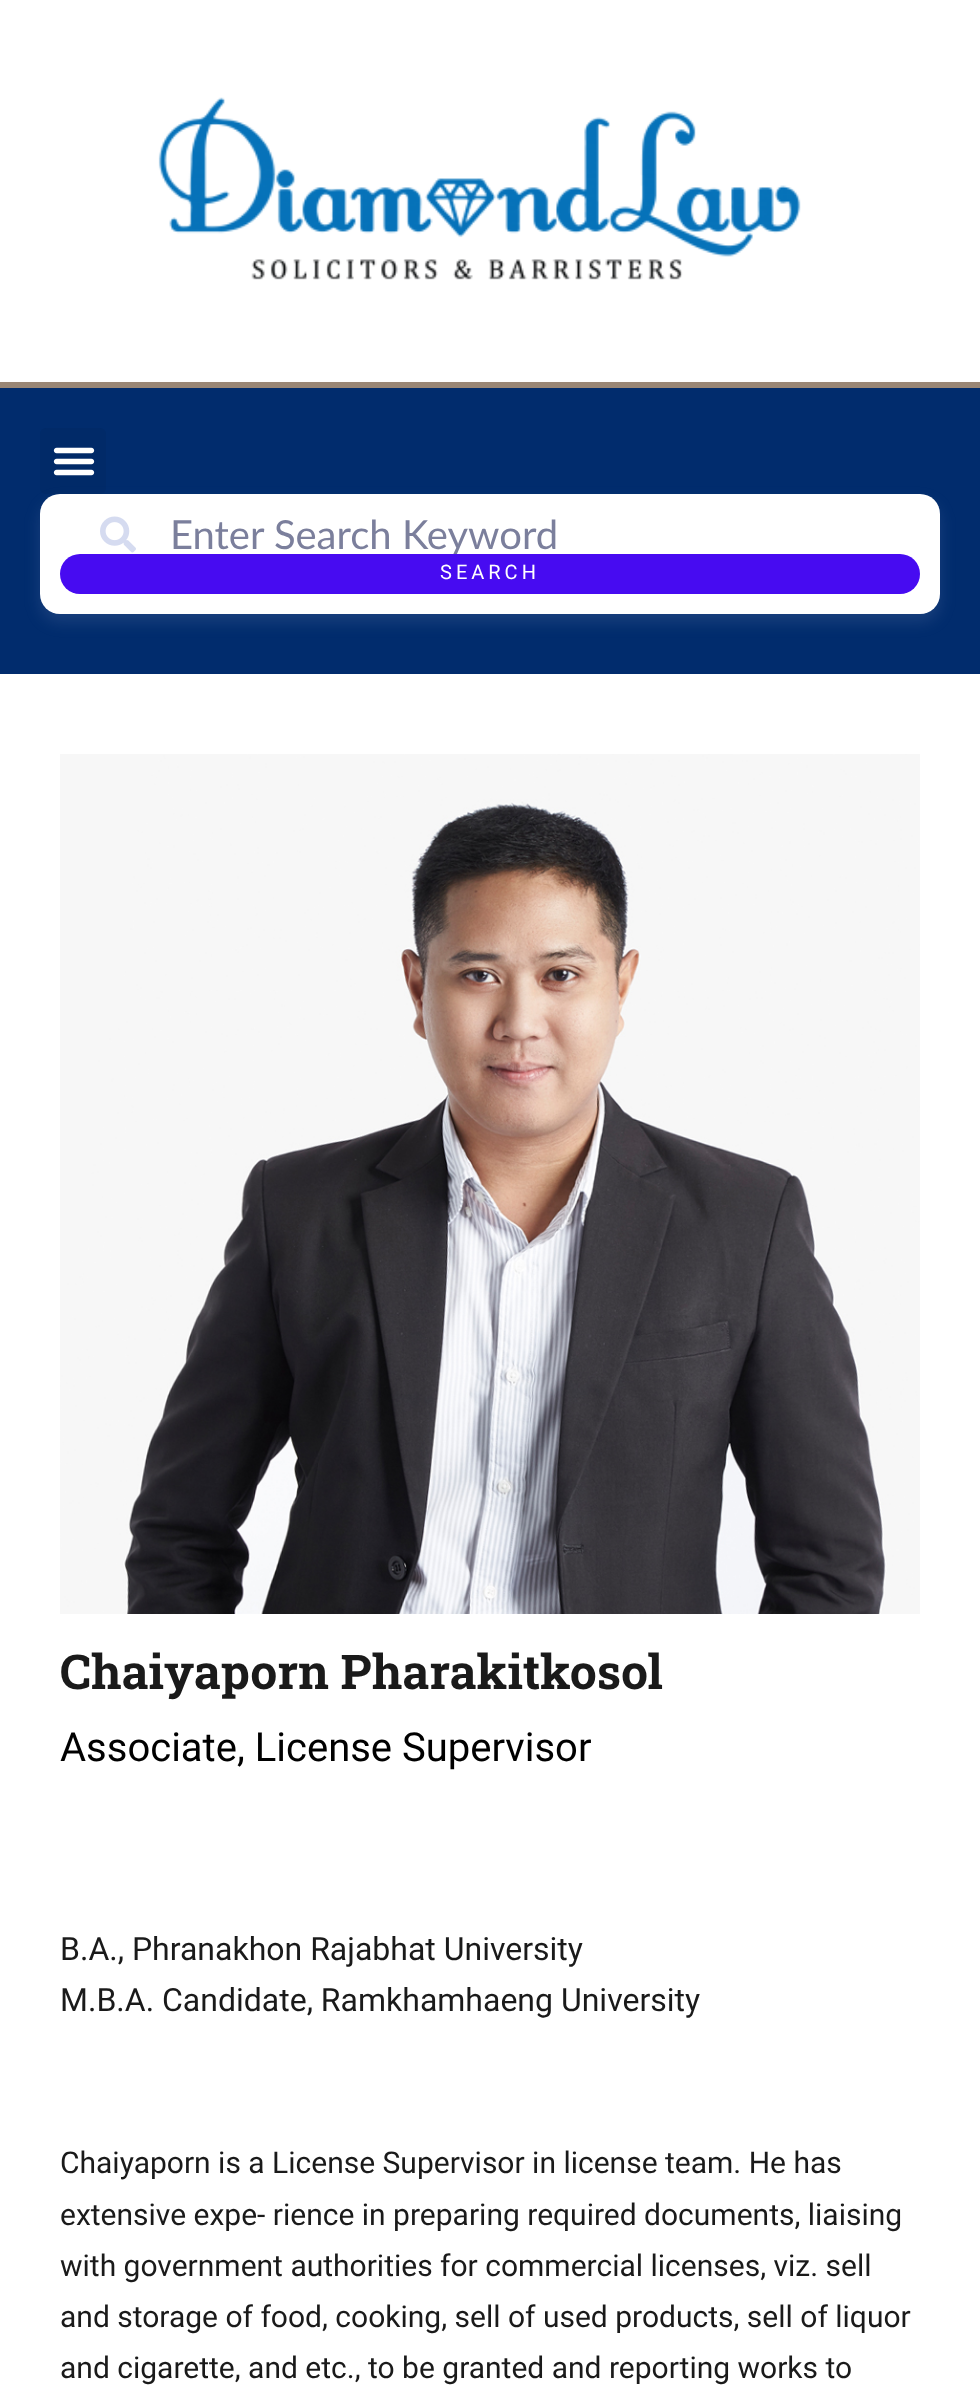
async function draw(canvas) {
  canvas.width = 980;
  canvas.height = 2408;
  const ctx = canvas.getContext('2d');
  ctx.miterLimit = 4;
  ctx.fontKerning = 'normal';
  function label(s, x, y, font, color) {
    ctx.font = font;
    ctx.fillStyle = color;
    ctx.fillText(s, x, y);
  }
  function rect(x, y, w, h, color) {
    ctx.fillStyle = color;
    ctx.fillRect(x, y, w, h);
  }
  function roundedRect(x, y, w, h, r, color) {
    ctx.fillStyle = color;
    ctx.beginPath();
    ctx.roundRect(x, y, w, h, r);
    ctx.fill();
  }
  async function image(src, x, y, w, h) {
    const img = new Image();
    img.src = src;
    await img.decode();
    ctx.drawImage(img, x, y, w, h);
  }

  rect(0, 0, 980, 2408, '#fff');
  await image('assets/img1.png', 158, 97, 643, 183);
  rect(0, 388, 980, 286, '#012c6d');
  rect(0, 382, 980, 6, '#998675');
  roundedRect(40, 428, 66, 66, 6, '#012a68');
  await image('assets/img2.png', 53, 447, 42, 29);
  ctx.fillStyle = '#a5aed526';
  ctx.filter = 'blur(8px)';
  ctx.beginPath();
  ctx.roundRect(40, 502, 900, 120, 20);
  ctx.fill();
  ctx.filter = 'none';
  roundedRect(40, 494, 900, 120, 20, '#fff');
  await image('assets/img3.png', 100, 516, 36, 37);
  ctx.save();
  ctx.beginPath();
  ctx.roundRect(60, 514, 860, 40, 20);
  ctx.clip();
  label('Enter Search Keyword', 170, 549, '40px Lato', '#7b7f9c');
  ctx.restore();
  roundedRect(60, 554, 860, 40, 20, '#470bf1');
  ctx.letterSpacing = '4px';
  label('SEARCH', 440, 579, '20px Roboto', '#fff');
  await image('assets/img4.png', 60, 754, 860, 860);
  ctx.letterSpacing = '0px';
  label('Chaiyaporn Pharakitkosol', 60, 1689, 'bold 48px Roboto Slab', '#1a1a1a');
  label('Associate, License Supervisor', 60, 1761, '40px Roboto', '#000');
  label('B.A., Phranakhon Rajabhat University', 60, 1960, '32px Roboto', '#1a1a1a');
  label('M.B.A. Candidate, Ramkhamhaeng University', 60, 2011, '32px Roboto', '#1a1a1a');
  label('Chaiyaporn is a License Supervisor in license team. He has', 60, 2173, '30px Roboto', '#1a1a1a');
  label('extensive expe- rience in preparing required documents, liaising', 60, 2225, '30px Roboto', '#1a1a1a');
  label('with government authorities for commercial licenses, viz. sell', 60, 2276, '30px Roboto', '#1a1a1a');
  label('and storage of food, cooking, sell of used products, sell of liquor', 60, 2327, '30px Roboto', '#1a1a1a');
  label('and cigarette, and etc., to be granted and reporting works to', 60, 2378, '30px Roboto', '#1a1a1a');
}

draw(document.querySelector('canvas'));
